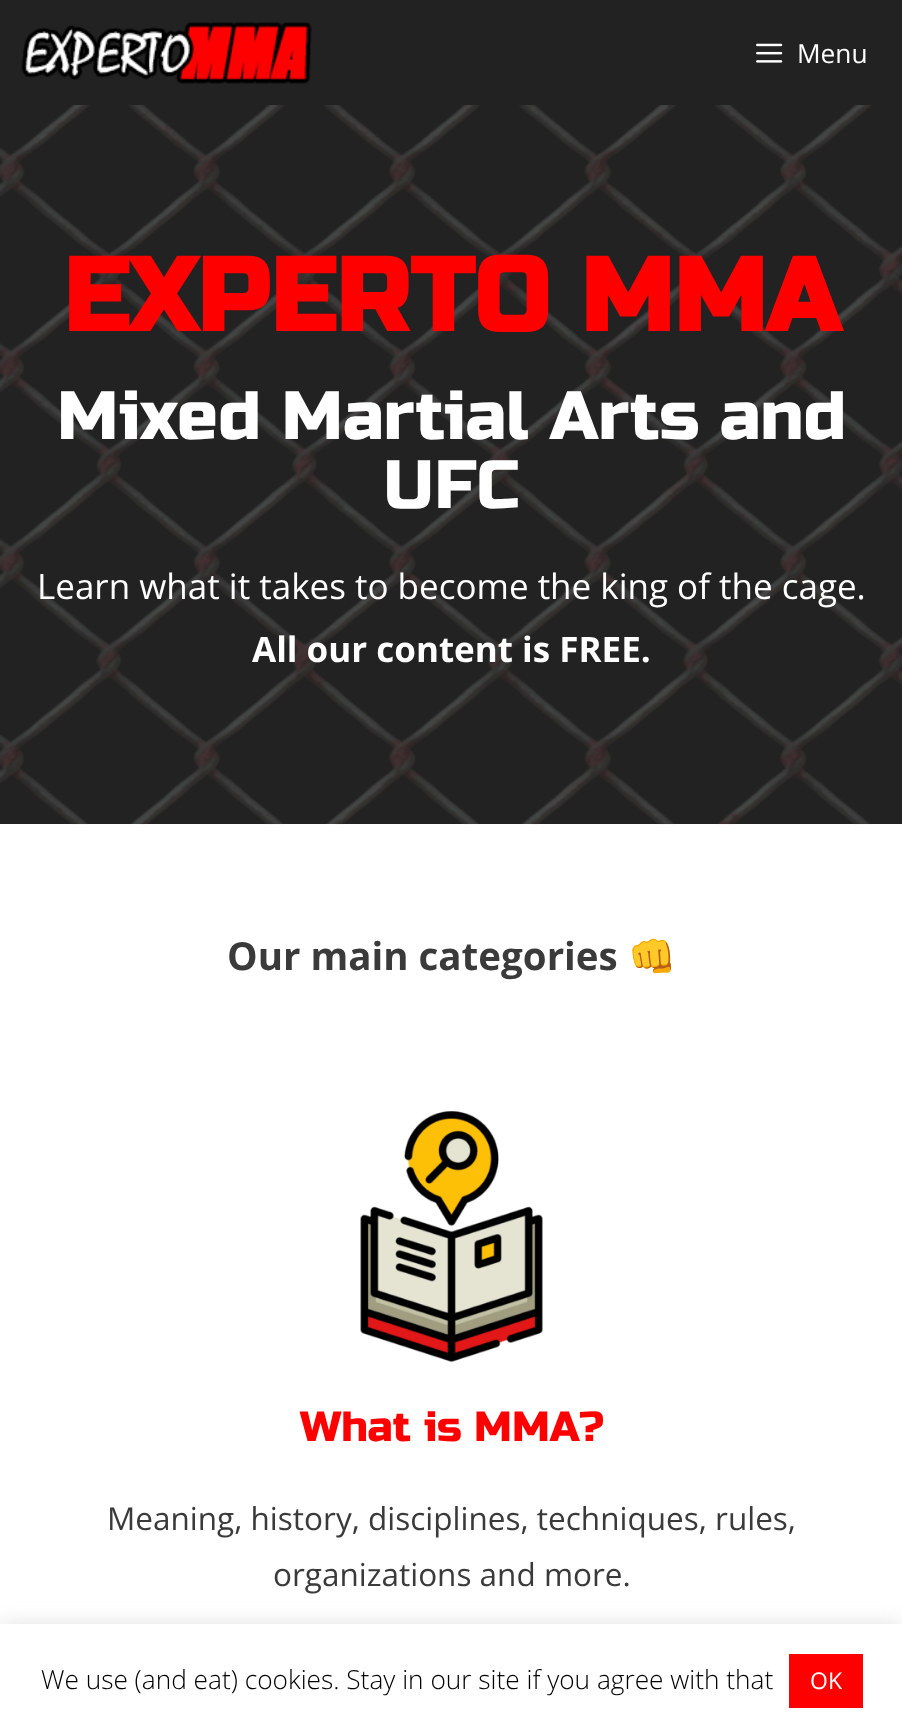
async function draw(canvas) {
  canvas.width = 902;
  canvas.height = 1729;
  const ctx = canvas.getContext('2d');
  ctx.miterLimit = 4;
  ctx.fontKerning = 'normal';
  function label(s, x, y, font, color) {
    ctx.font = font;
    ctx.fillStyle = color;
    ctx.fillText(s, x, y);
  }
  function rect(x, y, w, h, color) {
    ctx.fillStyle = color;
    ctx.fillRect(x, y, w, h);
  }
  async function image(src, x, y, w, h) {
    const img = new Image();
    img.src = src;
    await img.decode();
    ctx.drawImage(img, x, y, w, h);
  }

  rect(0, 0, 902, 1729, '#222');
  await image('assets/img1.png', 21, 22, 291, 62);
  await image('assets/img2.png', 756, 43, 27, 20);
  label('Menu', 797, 63, '26.25px Open Sans', '#fff');
  rect(0, 824, 902, 800, '#fff');
  await image('assets/img3.png', 0, 105, 902, 720);
  label('EXPERTO MMA', 63, 331, 'bold 103.25px Russo One', '#f00');
  label('Mixed Martial Arts and', 57, 439, '68.25px Russo One', '#fff');
  label('UFC', 383, 508, '68.25px Russo One', '#fff');
  label('Learn what it takes to become the king of the cage.', 37, 599, '35px Open Sans', '#fff');
  label('All our content is FREE.', 252, 662, 'bold 35px Open Sans', '#fff');
  label('Our main categories', 227, 970, 'bold 38.5px Open Sans', '#3a3a3a');
  label('👊', 628, 970, '38.5px Noto Color Emoji', '#3a3a3a');
  await image('assets/img4.png', 360, 1111, 183, 251);
  label('What is MMA?', 300, 1441, '42px Russo One', '#f00');
  label('Meaning, history, disciplines, techniques, rules,', 107, 1530, '31.5px Open Sans', '#3a3a3a');
  label('organizations and more.', 273, 1586, '31.5px Open Sans', '#3a3a3a');
  ctx.fillStyle = '#acabab4d';
  ctx.filter = 'blur(9px)';
  ctx.beginPath();
  ctx.rect(0, 1622, 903, 105);
  ctx.fill();
  ctx.filter = 'none';
  rect(0, 1624, 902, 105, '#fff');
  label('We use (and eat) cookies. Stay in our site if you agree with that', 41, 1689, '300 26.25px Open Sans', '#000');
  rect(789, 1654, 74, 54, '#f00');
  label('OK', 810, 1689, '23px Open Sans', '#fff');
}

draw(document.querySelector('canvas'));
